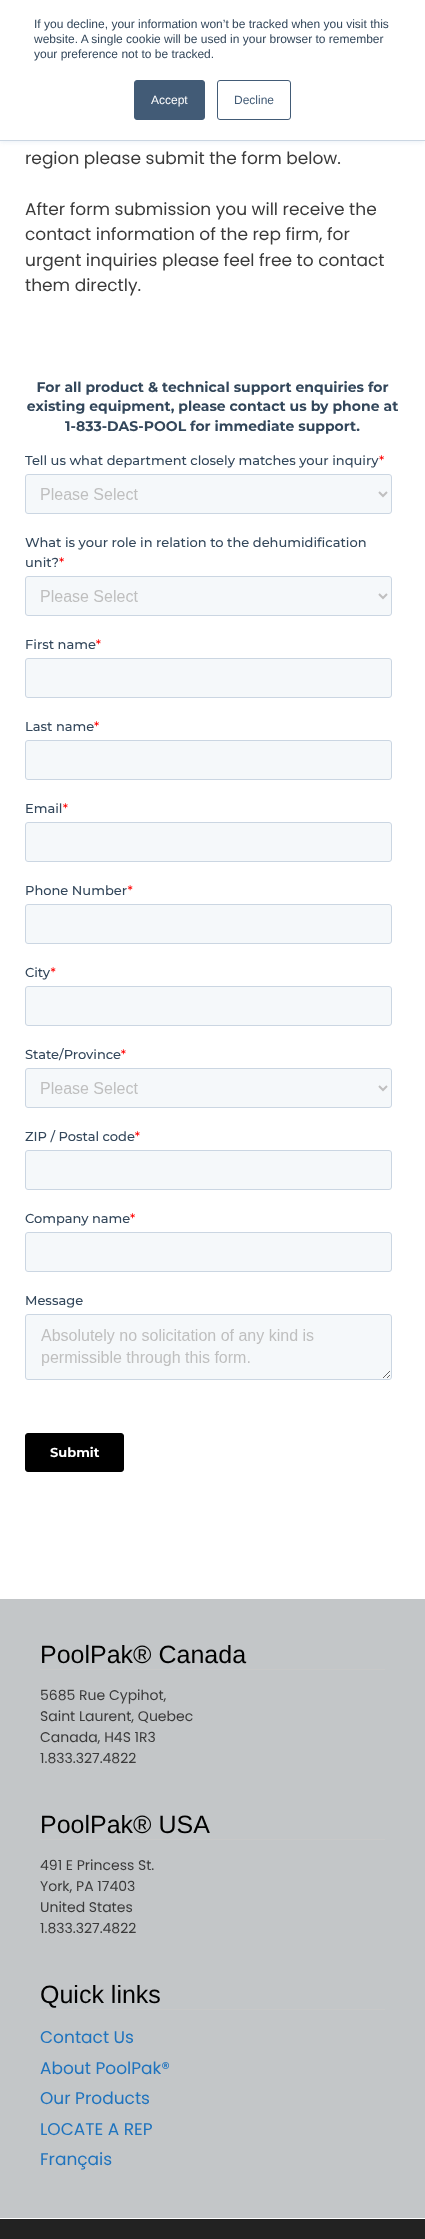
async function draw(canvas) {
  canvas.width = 425;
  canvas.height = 2239;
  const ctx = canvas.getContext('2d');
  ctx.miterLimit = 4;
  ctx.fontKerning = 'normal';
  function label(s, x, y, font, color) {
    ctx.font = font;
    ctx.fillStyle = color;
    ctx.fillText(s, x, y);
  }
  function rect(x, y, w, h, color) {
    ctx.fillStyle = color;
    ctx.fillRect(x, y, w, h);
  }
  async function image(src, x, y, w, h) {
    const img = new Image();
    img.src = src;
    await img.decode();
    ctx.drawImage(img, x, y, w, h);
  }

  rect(0, 0, 425, 2239, '#fff');
  ctx.fillStyle = '#eaf0f6';
  ctx.filter = 'blur(2.5px)';
  ctx.beginPath();
  ctx.rect(0, -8, 425, 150);
  ctx.fill();
  ctx.filter = 'none';
  rect(0, 0, 425, 140, '#fff');
  rect(0, 140, 425, 1, '#cbd6e2');
  label('If you decline, your information won’t be tracked when you visit this', 34, 28, '12px Liberation Sans', '#33475b');
  label('website. A single cookie will be used in your browser to remember', 34, 43, '12px Liberation Sans', '#33475b');
  label('your preference not to be tracked.', 34, 58, '12px Liberation Sans', '#33475b');
  ctx.fillStyle = '#425b76';
  ctx.beginPath();
  ctx.roundRect(134.5, 80.5, 70, 39, 2.5);
  ctx.fill();
  ctx.strokeStyle = '#425b76';
  ctx.stroke();
  label('Accept', 151, 104, '12px Liberation Sans', '#fff');
  ctx.beginPath();
  ctx.roundRect(217.5, 80.5, 73, 39, 2.5);
  ctx.stroke();
  label('Decline', 234, 104, '12px Liberation Sans', '#425b76');
  label('region please submit the form below.', 25, 164, '17px Poppins', '#3a3a3a');
  label('After form submission you will receive the', 25, 215, '17px Poppins', '#3a3a3a');
  label('contact information of the rep firm, for', 25, 240, '17px Poppins', '#3a3a3a');
  label('urgent inquiries please feel free to contact', 25, 266, '17px Poppins', '#3a3a3a');
  label('them directly.', 25, 291, '17px Poppins', '#3a3a3a');
  await image('assets/img1.png', 25, 381, 373, 1091);
  rect(0, 1599, 425, 619, '#c3c6c8');
  rect(40, 1669, 345, 1, '#c8c8c8');
  label('PoolPak® Canada', 40, 1663, '25px Liberation Sans', '#000');
  label('5685 Rue Cypihot,', 40, 1700, '14px Poppins', '#3a3a3a');
  label('Saint Laurent, Quebec', 40, 1721, '14px Poppins', '#3a3a3a');
  label('Canada, H4S 1R3', 40, 1742, '14px Poppins', '#3a3a3a');
  label('1.833.327.4822', 40, 1763, '14px Poppins', '#3a3a3a');
  rect(40, 1839, 345, 1, '#c8c8c8');
  label('PoolPak® USA', 40, 1833, '25px Liberation Sans', '#000');
  label('491 E Princess St.', 40, 1870, '14px Poppins', '#3a3a3a');
  label('York, PA 17403', 40, 1891, '14px Poppins', '#3a3a3a');
  label('United States', 40, 1912, '14px Poppins', '#3a3a3a');
  label('1.833.327.4822', 40, 1933, '14px Poppins', '#3a3a3a');
  rect(40, 2009, 345, 1, '#c8c8c8');
  label('Quick links', 40, 2003, '25px Liberation Sans', '#000');
  label('Contact Us', 40, 2043, '17px Poppins', '#1e73be');
  label('About PoolPak®', 40, 2074, '17px Poppins', '#1e73be');
  label('Our Products', 40, 2104, '17px Poppins', '#1e73be');
  label('LOCATE A REP', 40, 2135, '17px Poppins', '#1e73be');
  label('Français', 40, 2165, '17px Poppins', '#1e73be');
  rect(0, 2219, 425, 20, '#222');
}

draw(document.querySelector('canvas'));
